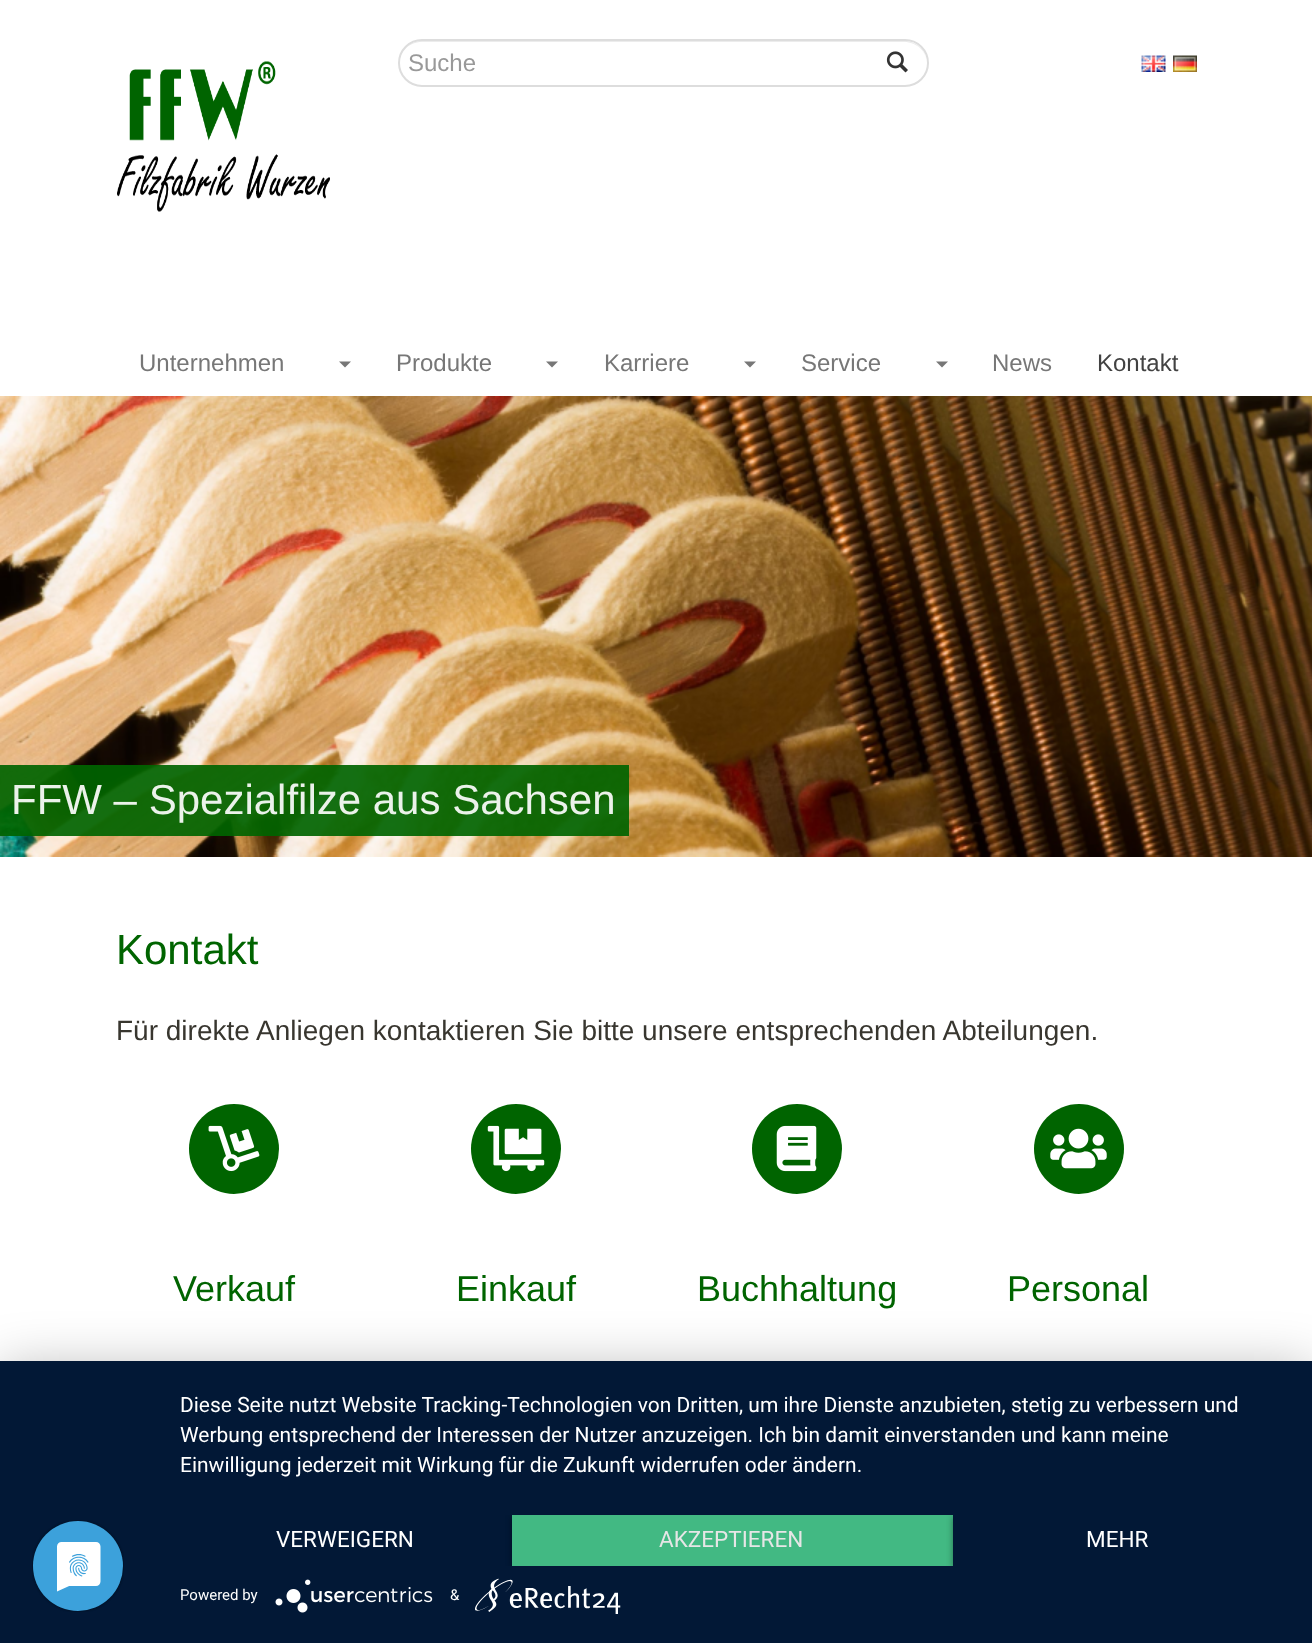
async function draw(canvas) {
  canvas.width = 1312;
  canvas.height = 1643;
  const ctx = canvas.getContext('2d');
  ctx.miterLimit = 4;
  ctx.fontKerning = 'normal';
  function label(s, x, y, font, color) {
    ctx.font = font;
    ctx.fillStyle = color;
    ctx.fillText(s, x, y);
  }
  function rect(x, y, w, h, color) {
    ctx.fillStyle = color;
    ctx.fillRect(x, y, w, h);
  }
  async function image(src, x, y, w, h) {
    const img = new Image();
    img.src = src;
    await img.decode();
    ctx.drawImage(img, x, y, w, h);
  }
  let path;

  rect(0, 0, 1312, 1643, '#fff');
  await image('assets/img1.png', 117, 61, 213, 151);
  ctx.fillStyle = '#ececec';
  path = new Path2D('M422 42H904C917 42 927 52 927 64C927 51 917 41 904 41H422C409 41 399 51 399 64C399 52 409 42 422 42Z');
  ctx.fill(path);
  ctx.beginPath();
  ctx.roundRect(399, 40, 529, 46, 23);
  ctx.strokeStyle = '#ddd';
  ctx.lineWidth = 2;
  ctx.stroke();
  label('Suche', 408, 71, '24px Liberation Sans', '#999');
  await image('assets/img2.png', 886, 51, 22, 22);
  await image('assets/img3.png', 1141, 55, 25, 17);
  await image('assets/img4.png', 1173, 55, 24, 17);
  label('Unternehmen', 139, 371, '24px Liberation Sans', '#777');
  path = new Path2D('M339 361.5H351L345 367.5Z');
  ctx.fill(path);
  label('Produkte', 396, 371, '24px Liberation Sans', '#777');
  path = new Path2D('M546 361.5H558L552 367.5Z');
  ctx.fill(path);
  label('Karriere', 604, 371, '24px Liberation Sans', '#777');
  path = new Path2D('M744 361.5H756L750 367.5Z');
  ctx.fill(path);
  label('Service', 801, 371, '24px Liberation Sans', '#777');
  path = new Path2D('M936 361.5H948L942 367.5Z');
  ctx.fill(path);
  label('News', 992, 371, '24px Liberation Sans', '#777');
  label('Kontakt', 1097, 371, '24px Liberation Sans', '#424242');
  await image('assets/img5.png', 0, 396, 1312, 461);
  rect(0, 765, 629, 71, '#006400eb');
  label('FFW – Spezialfilze aus Sachsen', 11, 814, '42px Liberation Sans', '#ebf2ea');
  label('Kontakt', 116, 964, '42px Liberation Sans', '#006400');
  label('Für direkte Anliegen kontaktieren Sie bitte unsere entsprechenden Abteilungen.', 116, 1040, '28px Liberation Sans', '#38362f');
  ctx.fillStyle = '#006400';
  ctx.beginPath();
  ctx.arc(234, 1149, 45, 0, 2 * Math.PI);
  ctx.fill();
  await image('assets/img6.png', 208, 1125, 52, 47);
  label('Verkauf', 173, 1301, '36px Liberation Sans', '#006400');
  ctx.beginPath();
  ctx.arc(516, 1149, 45, 0, 2 * Math.PI);
  ctx.fill();
  await image('assets/img7.png', 487, 1125, 58, 47);
  label('Einkauf', 456, 1301, '36px Liberation Sans', '#006400');
  ctx.beginPath();
  ctx.arc(797, 1149, 45, 0, 2 * Math.PI);
  ctx.fill();
  await image('assets/img8.png', 776, 1125, 41, 47);
  label('Buchhaltung', 697, 1301, '36px Liberation Sans', '#006400');
  ctx.beginPath();
  ctx.arc(1079, 1149, 45, 0, 2 * Math.PI);
  ctx.fill();
  await image('assets/img9.png', 1050, 1128, 57, 41);
  label('Personal', 1007, 1301, '36px Liberation Sans', '#006400');
  ctx.fillStyle = '#0000004d';
  ctx.filter = 'blur(27px)';
  ctx.beginPath();
  ctx.rect(0, 1370, 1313, 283);
  ctx.fill();
  ctx.filter = 'none';
  rect(0, 1361, 1312, 282, '#021836');
  await image('assets/img10.png', 32, 1520, 92, 92);
  label('Diese Seite nutzt Website Tracking-Technologien von Dritten, um ihre Dienste anzubieten, stetig zu verbessern und', 180, 1412, '21px Roboto', '#fff');
  label('Werbung entsprechend der Interessen der Nutzer anzuzeigen. Ich bin damit einverstanden und kann meine', 180, 1442, '21px Roboto', '#fff');
  label('Einwilligung jederzeit mit Wirkung für die Zukunft widerrufen oder ändern.', 180, 1472, '21px Roboto', '#fff');
  label('VERWEIGERN', 276, 1547, '22.5px Roboto', '#fff');
  ctx.save();
  ctx.beginPath();
  ctx.rect(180, 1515, 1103, 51);
  ctx.clip();
  ctx.fillStyle = '#00000066';
  ctx.filter = 'blur(3px)';
  ctx.beginPath();
  ctx.rect(512, 1517, 441, 51);
  ctx.fill();
  ctx.filter = 'none';
  ctx.restore();
  rect(512, 1515, 441, 51, '#42b983');
  label('AKZEPTIEREN', 659, 1547, '22.5px Roboto', '#e6e6e6');
  ctx.save();
  ctx.beginPath();
  ctx.rect(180, 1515, 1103, 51);
  ctx.clip();
  ctx.fillStyle = '#00000066';
  ctx.filter = 'blur(3px)';
  ctx.beginPath();
  ctx.rect(953, 1517, 330, 51);
  ctx.fill();
  ctx.filter = 'none';
  ctx.restore();
  rect(953, 1515, 330, 51, '#021836');
  label('MEHR', 1086, 1547, '22.5px Roboto', '#fff');
  label('Powered by', 180, 1600, '15px Roboto', '#fff');
  await image('assets/img11.png', 275, 1579, 158, 34);
  label('&', 450, 1600, '15px Roboto', '#fff');
  await image('assets/img12.png', 475, 1578, 146, 36);
}

draw(document.querySelector('canvas'));
